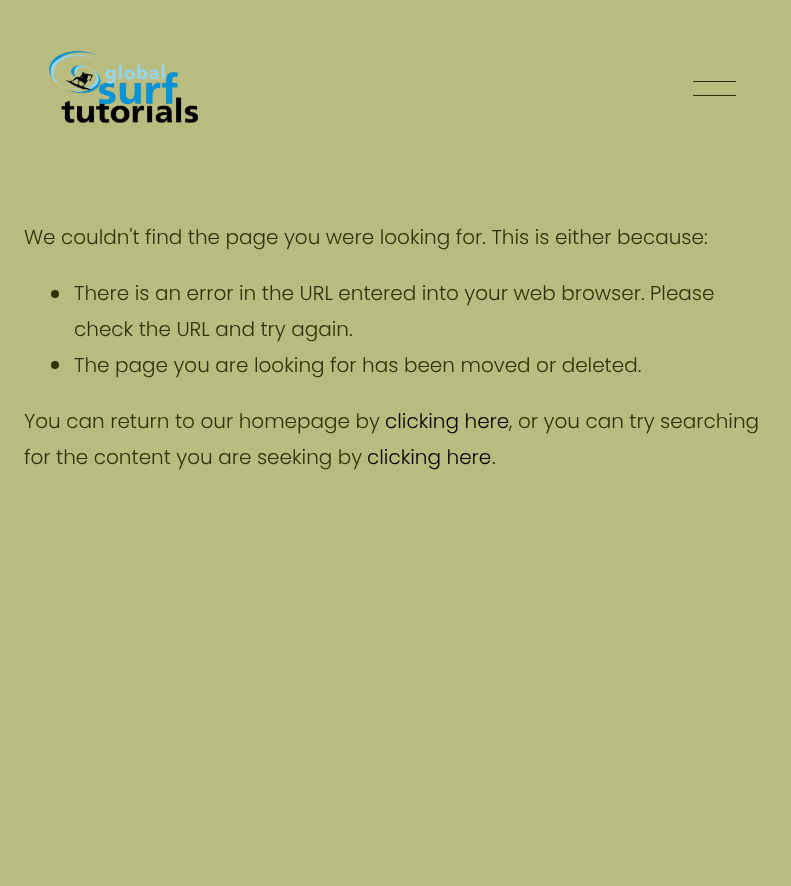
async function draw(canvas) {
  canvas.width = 791;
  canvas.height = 886;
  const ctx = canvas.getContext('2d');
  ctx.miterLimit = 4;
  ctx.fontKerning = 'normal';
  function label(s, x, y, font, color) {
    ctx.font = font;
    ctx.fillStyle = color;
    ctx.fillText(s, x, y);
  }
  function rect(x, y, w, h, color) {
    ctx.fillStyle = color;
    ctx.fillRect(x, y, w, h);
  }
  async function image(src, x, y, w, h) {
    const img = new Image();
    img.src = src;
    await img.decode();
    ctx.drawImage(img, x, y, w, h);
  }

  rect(0, 0, 791, 886, '#b8bc7f');
  await image('assets/img1.png', 49, 50, 149, 73);
  rect(693, 81, 43, 1, '#2e3105');
  rect(693, 95, 43, 1, '#2e3105');
  label('We couldn\'t find the page you were looking for. This is either because:', 24, 244, '300 20px Poppins', '#2e3105');
  ctx.beginPath();
  ctx.arc(55, 294, 4, 0, 2 * Math.PI);
  ctx.fill();
  label('There is an error in the URL entered into your web browser. Please', 74, 300, '300 20px Poppins', '#2e3105');
  label('check the URL and try again.', 74, 336, '300 20px Poppins', '#2e3105');
  ctx.beginPath();
  ctx.arc(55, 365, 4, 0, 2 * Math.PI);
  ctx.fill();
  label('The page you are looking for has been moved or deleted.', 74, 372, '300 20px Poppins', '#2e3105');
  label('You can return to our homepage by', 24, 428, '300 20px Poppins', '#2e3105');
  label('clicking here', 385, 428, '300 20px Poppins', '#000');
  label(', or you can try searching', 509, 428, '300 20px Poppins', '#2e3105');
  label('for the content you are seeking by', 24, 464, '300 20px Poppins', '#2e3105');
  label('clicking here', 367, 464, '300 20px Poppins', '#000');
  label('.', 492, 464, '300 20px Poppins', '#2e3105');
}

draw(document.querySelector('canvas'));
